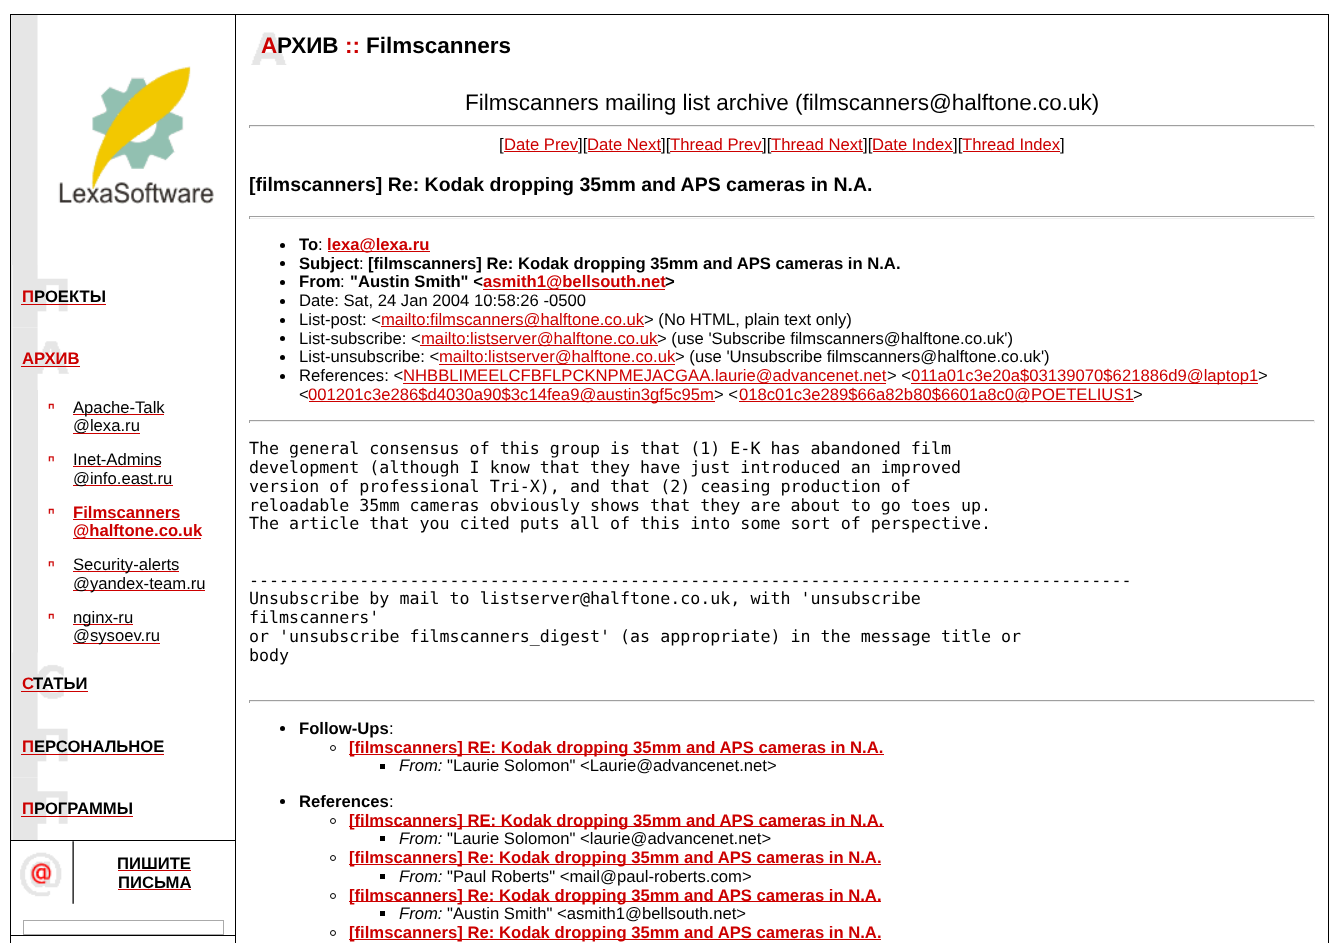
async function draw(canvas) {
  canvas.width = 1338;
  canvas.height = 943;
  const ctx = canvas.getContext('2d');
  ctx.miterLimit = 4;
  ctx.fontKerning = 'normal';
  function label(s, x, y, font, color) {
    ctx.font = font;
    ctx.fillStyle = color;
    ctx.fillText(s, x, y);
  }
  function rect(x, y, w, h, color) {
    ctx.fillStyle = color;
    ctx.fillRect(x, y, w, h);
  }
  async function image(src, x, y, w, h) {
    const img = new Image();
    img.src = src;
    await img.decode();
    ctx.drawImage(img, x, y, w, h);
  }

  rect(0, 0, 1338, 943, '#fff');
  rect(10, 14, 1319, 1, '#000');
  rect(10, 15, 1, 928, '#000');
  await image('assets/img1.png', 11, 15, 203, 250);
  rect(11, 265, 1, 575, '#e6e6e6');
  await image('assets/img2.png', 12, 265, 56, 63);
  label('П', 22, 302, 'bold 16.67px Liberation Sans', '#c00');
  label('РОЕКТЫ', 34, 302, 'bold 16.67px Liberation Sans', '#000');
  rect(21, 304, 85, 1, '#c00');
  await image('assets/img3.png', 12, 327, 57, 63);
  label('АРХИВ', 22, 364, 'bold 16.67px Liberation Sans', '#c00');
  rect(21, 366, 59, 1, '#c00');
  rect(13, 390, 25, 263, '#e6e6e6');
  await image('assets/img4.png', 48, 403, 6, 6);
  rect(73, 414, 91, 1, '#c00');
  label('Apache-Talk', 73, 413, '16.67px Liberation Sans', '#000');
  rect(73, 433, 67, 1, '#c00');
  label('@lexa.ru', 73, 431, '16.67px Liberation Sans', '#000');
  await image('assets/img5.png', 48, 456, 6, 6);
  label('Inet-Admins', 73, 465, '16.67px Liberation Sans', '#000');
  rect(73, 466, 88, 1, '#c00');
  rect(73, 485, 100, 1, '#c00');
  label('@info.east.ru', 73, 484, '16.67px Liberation Sans', '#000');
  await image('assets/img4.png', 48, 508, 6, 6);
  label('Filmscanners', 73, 518, 'bold 16.67px Liberation Sans', '#c00');
  rect(73, 519, 107, 1, '#c00');
  rect(73, 538, 128, 1, '#c00');
  label('@halftone.co.uk', 73, 536, 'bold 16.67px Liberation Sans', '#c00');
  await image('assets/img5.png', 48, 561, 6, 6);
  rect(73, 571, 106, 1, '#c00');
  label('Security-alerts', 73, 570, '16.67px Liberation Sans', '#000');
  rect(73, 590, 132, 1, '#c00');
  label('@yandex-team.ru', 73, 589, '16.67px Liberation Sans', '#000');
  await image('assets/img4.png', 48, 613, 6, 6);
  rect(73, 624, 60, 1, '#c00');
  label('nginx-ru', 73, 623, '16.67px Liberation Sans', '#000');
  rect(73, 643, 87, 1, '#c00');
  label('@sysoev.ru', 73, 641, '16.67px Liberation Sans', '#000');
  await image('assets/img6.png', 12, 652, 52, 63);
  label('С', 22, 689, 'bold 16.67px Liberation Sans', '#c00');
  rect(21, 691, 67, 1, '#c00');
  label('ТАТЬИ', 33, 689, 'bold 16.67px Liberation Sans', '#000');
  await image('assets/img2.png', 12, 715, 56, 63);
  label('П', 22, 752, 'bold 16.67px Liberation Sans', '#c00');
  label('ЕРСОНАЛЬНОЕ', 34, 752, 'bold 16.67px Liberation Sans', '#000');
  rect(21, 754, 143, 1, '#c00');
  await image('assets/img7.png', 12, 777, 56, 63);
  label('П', 22, 814, 'bold 16.67px Liberation Sans', '#c00');
  label('РОГРАММЫ', 34, 814, 'bold 16.67px Liberation Sans', '#000');
  rect(21, 816, 112, 1, '#c00');
  rect(11, 840, 224, 1, '#000');
  await image('assets/img8.png', 20, 841, 54, 63);
  label('ПИШИТЕ', 117, 869, 'bold 16.67px Liberation Sans', '#000');
  rect(118, 870, 73, 1, '#c00');
  label('ПИСЬМА', 118, 888, 'bold 16.67px Liberation Sans', '#000');
  rect(118, 889, 73, 1, '#c00');
  rect(23, 920, 201, 15, '#aaa');
  rect(24, 921, 199, 13, '#fff');
  rect(11, 935, 224, 1, '#000');
  rect(235, 15, 1, 928, '#000');
  await image('assets/img9.png', 251, 32, 36, 33);
  label('А', 261, 53, 'bold 22.5px Liberation Sans', '#c00');
  label('РХИВ', 277, 53, 'bold 22.5px Liberation Sans', '#000');
  label('::', 345, 53, 'bold 22.5px Liberation Sans', '#c00');
  label('Filmscanners', 366, 53, 'bold 22.5px Liberation Sans', '#000');
  label('Filmscanners mailing list archive (filmscanners@halftone.co.uk)', 465, 110, '22.5px Liberation Sans', '#000');
  rect(249, 125, 1066, 1, '#9f9f9f');
  rect(1314, 125, 1, 3, '#eee');
  rect(249, 126, 1066, 1, '#eee');
  rect(249, 125, 1, 3, '#9f9f9f');
  label('[', 499, 150, '16.67px Liberation Sans', '#000');
  label('Date Prev', 504, 150, '16.67px Liberation Sans', '#c00');
  rect(504, 151, 74, 1, '#c00');
  label('][', 578, 150, '16.67px Liberation Sans', '#000');
  label('Date Next', 587, 150, '16.67px Liberation Sans', '#c00');
  rect(588, 151, 73, 1, '#c00');
  label('][', 661, 150, '16.67px Liberation Sans', '#000');
  label('Thread Prev', 670, 150, '16.67px Liberation Sans', '#c00');
  rect(670, 151, 93, 1, '#c00');
  label('][', 762, 150, '16.67px Liberation Sans', '#000');
  label('Thread Next', 771, 150, '16.67px Liberation Sans', '#c00');
  rect(771, 151, 92, 1, '#c00');
  label('][', 863, 150, '16.67px Liberation Sans', '#000');
  label('Date Index', 872, 150, '16.67px Liberation Sans', '#c00');
  rect(873, 151, 80, 1, '#c00');
  label('][', 953, 150, '16.67px Liberation Sans', '#000');
  label('Thread Index', 962, 150, '16.67px Liberation Sans', '#c00');
  rect(963, 151, 97, 1, '#c00');
  label(']', 1060, 150, '16.67px Liberation Sans', '#000');
  label('[filmscanners] Re: Kodak dropping 35mm and APS cameras in N.A.', 249, 191, 'bold 19.5px Liberation Sans', '#000');
  rect(249, 216, 1066, 1, '#9f9f9f');
  rect(1314, 216, 1, 3, '#eee');
  rect(249, 218, 1066, 1, '#eee');
  rect(249, 216, 1, 3, '#9f9f9f');
  ctx.fillStyle = '#000';
  ctx.beginPath();
  ctx.arc(282.5, 245.5, 2.5, 0, 2 * Math.PI);
  ctx.fill();
  label('To', 299, 250, 'bold 16.67px Liberation Sans', '#000');
  label(':', 318, 250, '16.67px Liberation Sans', '#000');
  rect(328, 251, 102, 1, '#c00');
  label('lexa@lexa.ru', 327, 250, 'bold 16.67px Liberation Sans', '#c00');
  ctx.fillStyle = '#000';
  ctx.beginPath();
  ctx.arc(282.5, 263.5, 2.5, 0, 2 * Math.PI);
  ctx.fill();
  label('Subject', 299, 269, 'bold 16.67px Liberation Sans', '#000');
  label(':', 359, 269, '16.67px Liberation Sans', '#000');
  label('[filmscanners] Re: Kodak dropping 35mm and APS cameras in N.A.', 368, 269, 'bold 16.67px Liberation Sans', '#000');
  ctx.beginPath();
  ctx.arc(282.5, 282.5, 2.5, 0, 2 * Math.PI);
  ctx.fill();
  label('From', 299, 287, 'bold 16.67px Liberation Sans', '#000');
  label(':', 340, 287, '16.67px Liberation Sans', '#000');
  label('"Austin Smith" <', 350, 287, 'bold 16.67px Liberation Sans', '#000');
  rect(483, 289, 182, 1, '#c00');
  label('asmith1@bellsouth.net', 483, 287, 'bold 16.67px Liberation Sans', '#c00');
  label('>', 665, 287, 'bold 16.67px Liberation Sans', '#000');
  ctx.beginPath();
  ctx.arc(282.5, 301.5, 2.5, 0, 2 * Math.PI);
  ctx.fill();
  label('Date: Sat, 24 Jan 2004 10:58:26 -0500', 299, 306, '16.67px Liberation Sans', '#000');
  ctx.beginPath();
  ctx.arc(282.5, 320.5, 2.5, 0, 2 * Math.PI);
  ctx.fill();
  label('List-post: <', 299, 325, '16.67px Liberation Sans', '#000');
  rect(381, 326, 263, 1, '#c00');
  label('mailto:filmscanners@halftone.co.uk', 381, 325, '16.67px Liberation Sans', '#c00');
  label('> (No HTML, plain text only)', 644, 325, '16.67px Liberation Sans', '#000');
  ctx.beginPath();
  ctx.arc(282.5, 338.5, 2.5, 0, 2 * Math.PI);
  ctx.fill();
  label('List-subscribe: <', 299, 344, '16.67px Liberation Sans', '#000');
  rect(420, 345, 238, 1, '#c00');
  label('mailto:listserver@halftone.co.uk', 421, 344, '16.67px Liberation Sans', '#c00');
  label('> (use \'Subscribe filmscanners@halftone.co.uk\')', 657, 344, '16.67px Liberation Sans', '#000');
  ctx.beginPath();
  ctx.arc(282.5, 357.5, 2.5, 0, 2 * Math.PI);
  ctx.fill();
  label('List-unsubscribe: <', 299, 362, '16.67px Liberation Sans', '#000');
  rect(439, 364, 236, 1, '#c00');
  label('mailto:listserver@halftone.co.uk', 439, 362, '16.67px Liberation Sans', '#c00');
  label('> (use \'Unsubscribe filmscanners@halftone.co.uk\')', 675, 362, '16.67px Liberation Sans', '#000');
  ctx.beginPath();
  ctx.arc(282.5, 376.5, 2.5, 0, 2 * Math.PI);
  ctx.fill();
  label('References: <', 299, 381, '16.67px Liberation Sans', '#000');
  rect(403, 383, 483, 1, '#c00');
  label('NHBBLIMEELCFBFLPCKNPMEJACGAA.laurie@advancenet.net', 403, 381, '16.67px Liberation Sans', '#c00');
  label('> <', 887, 381, '16.67px Liberation Sans', '#000');
  rect(911, 383, 347, 1, '#c00');
  label('011a01c3e20a$03139070$621886d9@laptop1', 911, 381, '16.67px Liberation Sans', '#c00');
  label('>', 1258, 381, '16.67px Liberation Sans', '#000');
  label('<', 299, 400, '16.67px Liberation Sans', '#000');
  rect(309, 401, 406, 1, '#c00');
  label('001201c3e286$d4030a90$3c14fea9@austin3gf5c95m', 308, 400, '16.67px Liberation Sans', '#c00');
  label('> <', 714, 400, '16.67px Liberation Sans', '#000');
  rect(739, 401, 395, 1, '#c00');
  label('018c01c3e289$66a82b80$6601a8c0@POETELIUS1', 739, 400, '16.67px Liberation Sans', '#c00');
  label('>', 1133, 400, '16.67px Liberation Sans', '#000');
  rect(249, 420, 1066, 1, '#9f9f9f');
  rect(1314, 420, 1, 3, '#eee');
  rect(249, 421, 1066, 1, '#eee');
  rect(249, 420, 1, 3, '#9f9f9f');
  label('The general consensus of this group is that (1) E-K has abandoned film', 249, 454, '16.67px DejaVu Sans Mono', '#000');
  label('development (although I know that they have just introduced an improved', 249, 473, '16.67px DejaVu Sans Mono', '#000');
  label('version of professional Tri-X), and that (2) ceasing production of', 249, 492, '16.67px DejaVu Sans Mono', '#000');
  label('reloadable 35mm cameras obviously shows that they are about to go toes up.', 249, 511, '16.67px DejaVu Sans Mono', '#000');
  label('The article that you cited puts all of this into some sort of perspective.', 249, 529, '16.67px DejaVu Sans Mono', '#000');
  label('----------------------------------------------------------------------------------------', 249, 586, '16.67px DejaVu Sans Mono', '#000');
  label('Unsubscribe by mail to listserver@halftone.co.uk, with \'unsubscribe', 249, 604, '16.67px DejaVu Sans Mono', '#000');
  label('filmscanners\'', 249, 623, '16.67px DejaVu Sans Mono', '#000');
  label('or \'unsubscribe filmscanners_digest\' (as appropriate) in the message title or', 249, 642, '16.67px DejaVu Sans Mono', '#000');
  label('body', 249, 661, '16.67px DejaVu Sans Mono', '#000');
  rect(249, 700, 1066, 1, '#9f9f9f');
  rect(1314, 700, 1, 3, '#eee');
  rect(249, 701, 1066, 1, '#eee');
  rect(249, 700, 1, 3, '#9f9f9f');
  ctx.fillStyle = '#000';
  ctx.beginPath();
  ctx.arc(282.5, 728.5, 2.5, 0, 2 * Math.PI);
  ctx.fill();
  label('Follow-Ups', 299, 734, 'bold 16.67px Liberation Sans', '#000');
  label(':', 389, 734, '16.67px Liberation Sans', '#000');
  ctx.beginPath();
  ctx.arc(333, 748, 2.5, 0, 2 * Math.PI);
  ctx.strokeStyle = '#000';
  ctx.stroke();
  rect(349, 754, 535, 1, '#c00');
  label('[filmscanners] RE: Kodak dropping 35mm and APS cameras in N.A.', 349, 753, 'bold 16.67px Liberation Sans', '#c00');
  rect(380, 764, 5, 5, '#000');
  label('From:', 399, 771, 'italic 16.67px Liberation Sans', '#000');
  label('"Laurie Solomon" <Laurie@advancenet.net>', 447, 771, '16.67px Liberation Sans', '#000');
  ctx.beginPath();
  ctx.arc(282.5, 801.5, 2.5, 0, 2 * Math.PI);
  ctx.fill();
  label('References', 299, 807, 'bold 16.67px Liberation Sans', '#000');
  label(':', 389, 807, '16.67px Liberation Sans', '#000');
  ctx.beginPath();
  ctx.arc(333, 821, 2.5, 0, 2 * Math.PI);
  ctx.stroke();
  rect(349, 826, 535, 1, '#c00');
  label('[filmscanners] RE: Kodak dropping 35mm and APS cameras in N.A.', 349, 826, 'bold 16.67px Liberation Sans', '#c00');
  rect(380, 836, 5, 5, '#000');
  label('From:', 399, 844, 'italic 16.67px Liberation Sans', '#000');
  label('"Laurie Solomon" <laurie@advancenet.net>', 447, 844, '16.67px Liberation Sans', '#000');
  ctx.beginPath();
  ctx.arc(333, 858, 2.5, 0, 2 * Math.PI);
  ctx.stroke();
  rect(349, 864, 532, 1, '#c00');
  label('[filmscanners] Re: Kodak dropping 35mm and APS cameras in N.A.', 349, 863, 'bold 16.67px Liberation Sans', '#c00');
  rect(380, 874, 5, 5, '#000');
  label('From:', 399, 882, 'italic 16.67px Liberation Sans', '#000');
  label('"Paul Roberts" <mail@paul-roberts.com>', 447, 882, '16.67px Liberation Sans', '#000');
  ctx.beginPath();
  ctx.arc(333, 896, 2.5, 0, 2 * Math.PI);
  ctx.stroke();
  rect(349, 901, 532, 1, '#c00');
  label('[filmscanners] Re: Kodak dropping 35mm and APS cameras in N.A.', 349, 901, 'bold 16.67px Liberation Sans', '#c00');
  rect(380, 911, 5, 5, '#000');
  label('From:', 399, 919, 'italic 16.67px Liberation Sans', '#000');
  label('"Austin Smith" <asmith1@bellsouth.net>', 447, 919, '16.67px Liberation Sans', '#000');
  ctx.beginPath();
  ctx.arc(333, 933, 2.5, 0, 2 * Math.PI);
  ctx.stroke();
  rect(349, 939, 532, 1, '#c00');
  label('[filmscanners] Re: Kodak dropping 35mm and APS cameras in N.A.', 349, 938, 'bold 16.67px Liberation Sans', '#c00');
  rect(1328, 15, 1, 928, '#000');
}

draw(document.querySelector('canvas'));
